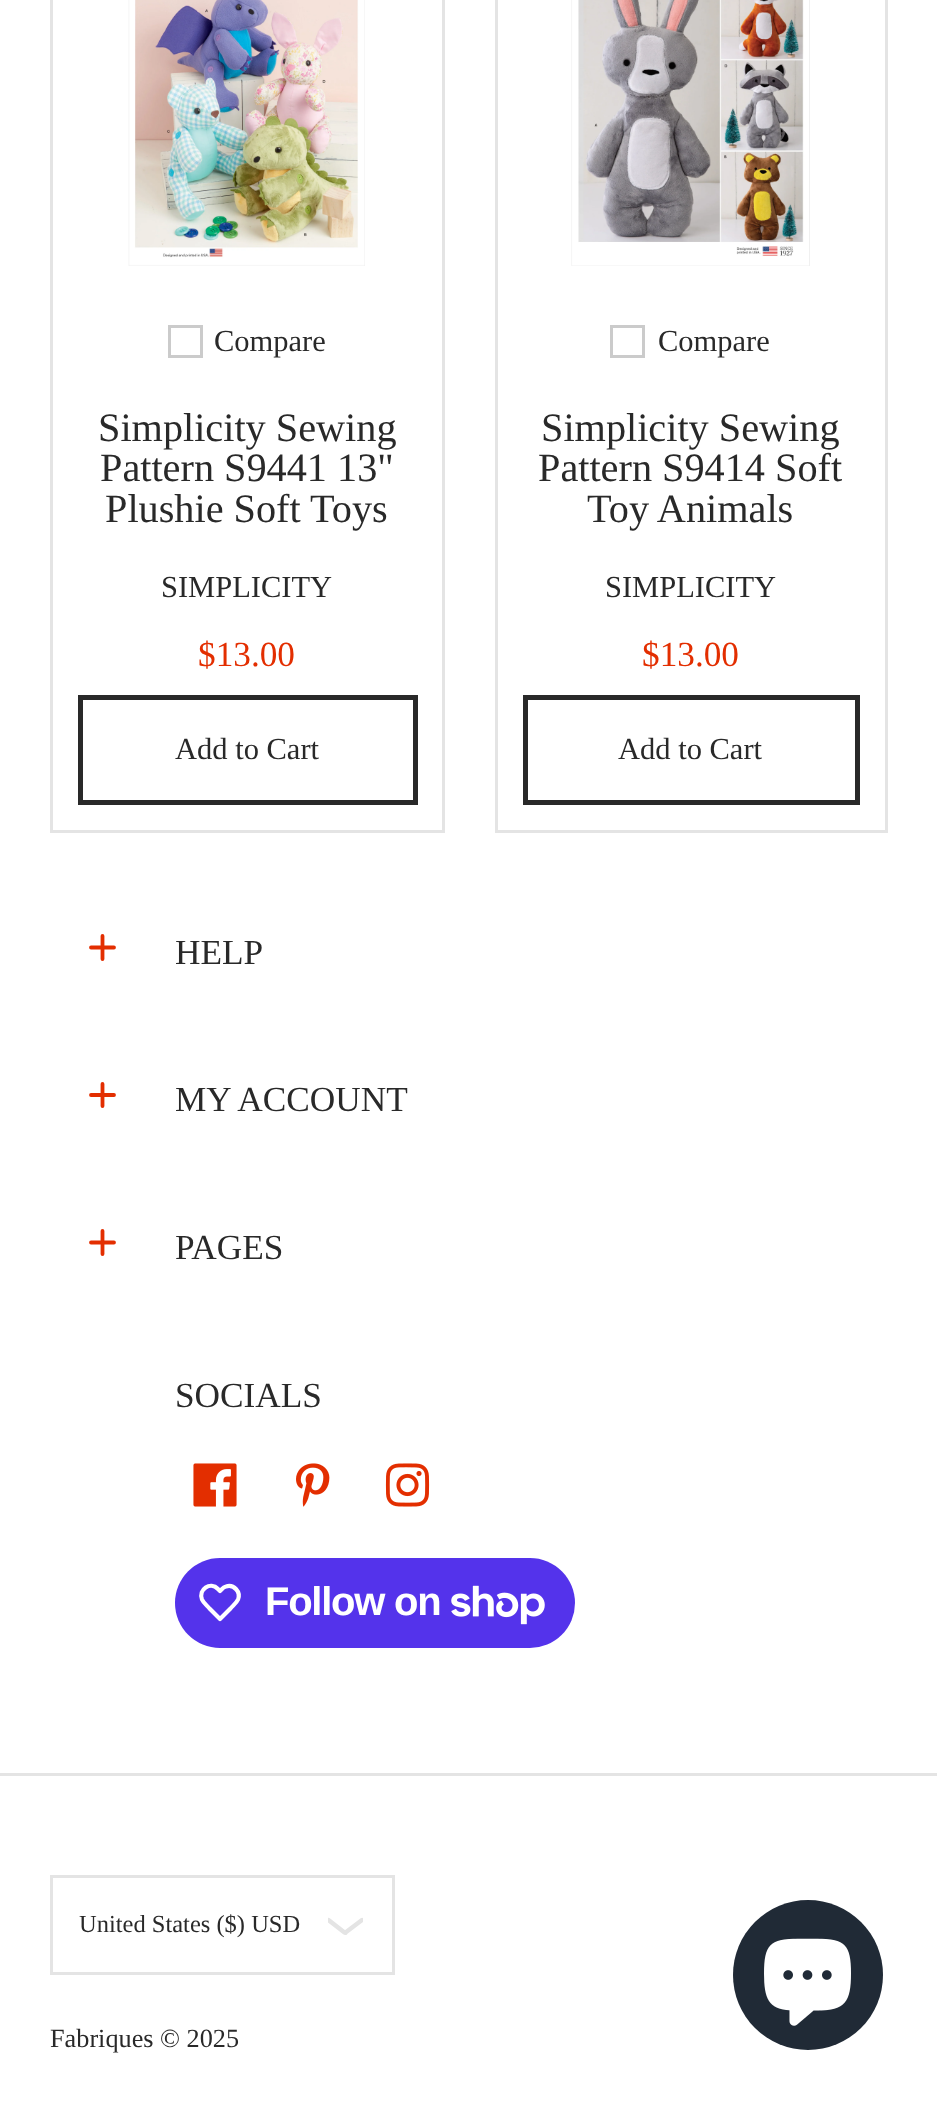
async function draw(canvas) {
  canvas.width = 937;
  canvas.height = 2101;
  const ctx = canvas.getContext('2d');
  ctx.miterLimit = 4;
  ctx.fontKerning = 'normal';
  function label(s, x, y, font, color) {
    ctx.font = font;
    ctx.fillStyle = color;
    ctx.fillText(s, x, y);
  }
  function rect(x, y, w, h, color) {
    ctx.fillStyle = color;
    ctx.fillRect(x, y, w, h);
  }
  function roundedRect(x, y, w, h, r, color) {
    ctx.fillStyle = color;
    ctx.beginPath();
    ctx.roundRect(x, y, w, h, r);
    ctx.fill();
  }
  async function image(src, x, y, w, h) {
    const img = new Image();
    img.src = src;
    await img.decode();
    ctx.drawImage(img, x, y, w, h);
  }
  let path;

  rect(0, 0, 937, 2101, '#fff');
  ctx.strokeStyle = '#e4e4e4';
  ctx.lineWidth = 3;
  ctx.strokeRect(51.5, -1.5, 392, 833);
  await image('assets/img1.png', 128, 0, 237, 266);
  ctx.strokeStyle = '#cbcbcb';
  ctx.strokeRect(169.5, 326.5, 32, 30);
  label('Compare', 214, 351, '30.5px Liberation Serif', '#292929');
  label('Simplicity Sewing', 98, 441, '40.25px Liberation Serif', '#292929');
  label('Pattern S9441 13"', 100, 481, '40.25px Liberation Serif', '#292929');
  label('Plushie Soft Toys', 105, 522, '40.25px Liberation Serif', '#292929');
  label('SIMPLICITY', 161, 597, '30.5px Liberation Serif', '#292929');
  label('$13.00', 198, 666, '35.25px Liberation Serif', '#e32e00');
  ctx.strokeStyle = '#292929';
  ctx.lineWidth = 5;
  ctx.strokeRect(80.5, 697.5, 335, 105);
  label('Add to Cart', 175, 759, '30.5px Liberation Serif', '#292929');
  ctx.strokeStyle = '#e4e4e4';
  ctx.lineWidth = 3;
  ctx.strokeRect(496.5, -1.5, 390, 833);
  await image('assets/img2.png', 571, 0, 239, 266);
  ctx.strokeStyle = '#cbcbcb';
  ctx.strokeRect(611.5, 326.5, 32, 30);
  label('Compare', 658, 351, '30.5px Liberation Serif', '#292929');
  label('Simplicity Sewing', 541, 441, '40.25px Liberation Serif', '#292929');
  label('Pattern S9414 Soft', 538, 481, '40.25px Liberation Serif', '#292929');
  label('Toy Animals', 587, 522, '40.25px Liberation Serif', '#292929');
  label('SIMPLICITY', 605, 597, '30.5px Liberation Serif', '#292929');
  label('$13.00', 642, 666, '35.25px Liberation Serif', '#e32e00');
  ctx.strokeStyle = '#292929';
  ctx.lineWidth = 5;
  ctx.strokeRect(525.5, 697.5, 332, 105);
  label('Add to Cart', 618, 759, '30.5px Liberation Serif', '#292929');
  rect(0, 1773, 937, 3, '#e4e4e4');
  path = new Path2D('M102.5 936V959M114 947.5H91');
  ctx.strokeStyle = '#e32e00';
  ctx.lineWidth = 3.8;
  ctx.lineCap = 'round';
  ctx.lineJoin = 'round';
  ctx.stroke(path);
  label('HELP', 175, 964, '35.25px Liberation Serif', '#292929');
  path = new Path2D('M102.5 1084V1106M114 1095H91');
  ctx.stroke(path);
  label('MY ACCOUNT', 175, 1111, '35.25px Liberation Serif', '#292929');
  path = new Path2D('M102.5 1231V1254M114 1242.5H91');
  ctx.stroke(path);
  label('PAGES', 175, 1259, '35.25px Liberation Serif', '#292929');
  label('SOCIALS', 175, 1407, '35.25px Liberation Serif', '#292929');
  await image('assets/img3.png', 193, 1463, 44, 44);
  await image('assets/img4.png', 296, 1463, 34, 44);
  await image('assets/img5.png', 385, 1463, 45, 44);
  roundedRect(175, 1558, 400, 90, 45, '#5433eb');
  path = new Path2D('M218 1589L220 1591C222 1589 223.5 1587 226 1586.5C234 1584 241 1592 238 1599.5C236.5 1603 233 1605.5 230.5 1608.5L220 1619L209.5 1608.5C207 1605.5 203.5 1603 202 1599.5C198 1589.5 210.5 1581 218 1589Z');
  ctx.strokeStyle = '#fff';
  ctx.lineWidth = 4.2;
  ctx.lineCap = 'butt';
  ctx.stroke(path);
  ctx.letterSpacing = '-1.25px';
  label('Follow on', 265, 1615, 'bold 40px Liberation Sans', '#fff');
  await image('assets/img6.png', 451, 1585, 94, 40);
  ctx.strokeStyle = '#e4e4e4';
  ctx.lineWidth = 3;
  ctx.lineJoin = 'miter';
  ctx.strokeRect(51.5, 1876.5, 342, 97);
  ctx.letterSpacing = '0px';
  label('United States ($) USD', 79, 1932, '24.5px Liberation Serif', '#292929');
  ctx.save();
  ctx.beginPath();
  ctx.rect(328, 1908, 35, 35);
  ctx.clip();
  path = new Path2D('M328.5 1920L344.5 1932.5C345 1933 345.5 1933 345.5 1932.5L362 1920');
  ctx.lineWidth = 4.4;
  ctx.lineCap = 'round';
  ctx.lineJoin = 'round';
  ctx.stroke(path);
  ctx.restore();
  label('Fabriques © 2025', 50, 2047, '26.25px Liberation Serif', '#292929');
  ctx.fillStyle = '#202a36';
  ctx.beginPath();
  ctx.arc(808, 1975, 75, 0, 2 * Math.PI);
  ctx.fill();
  await image('assets/img7.png', 764, 1938, 87, 88);
}

draw(document.querySelector('canvas'));
